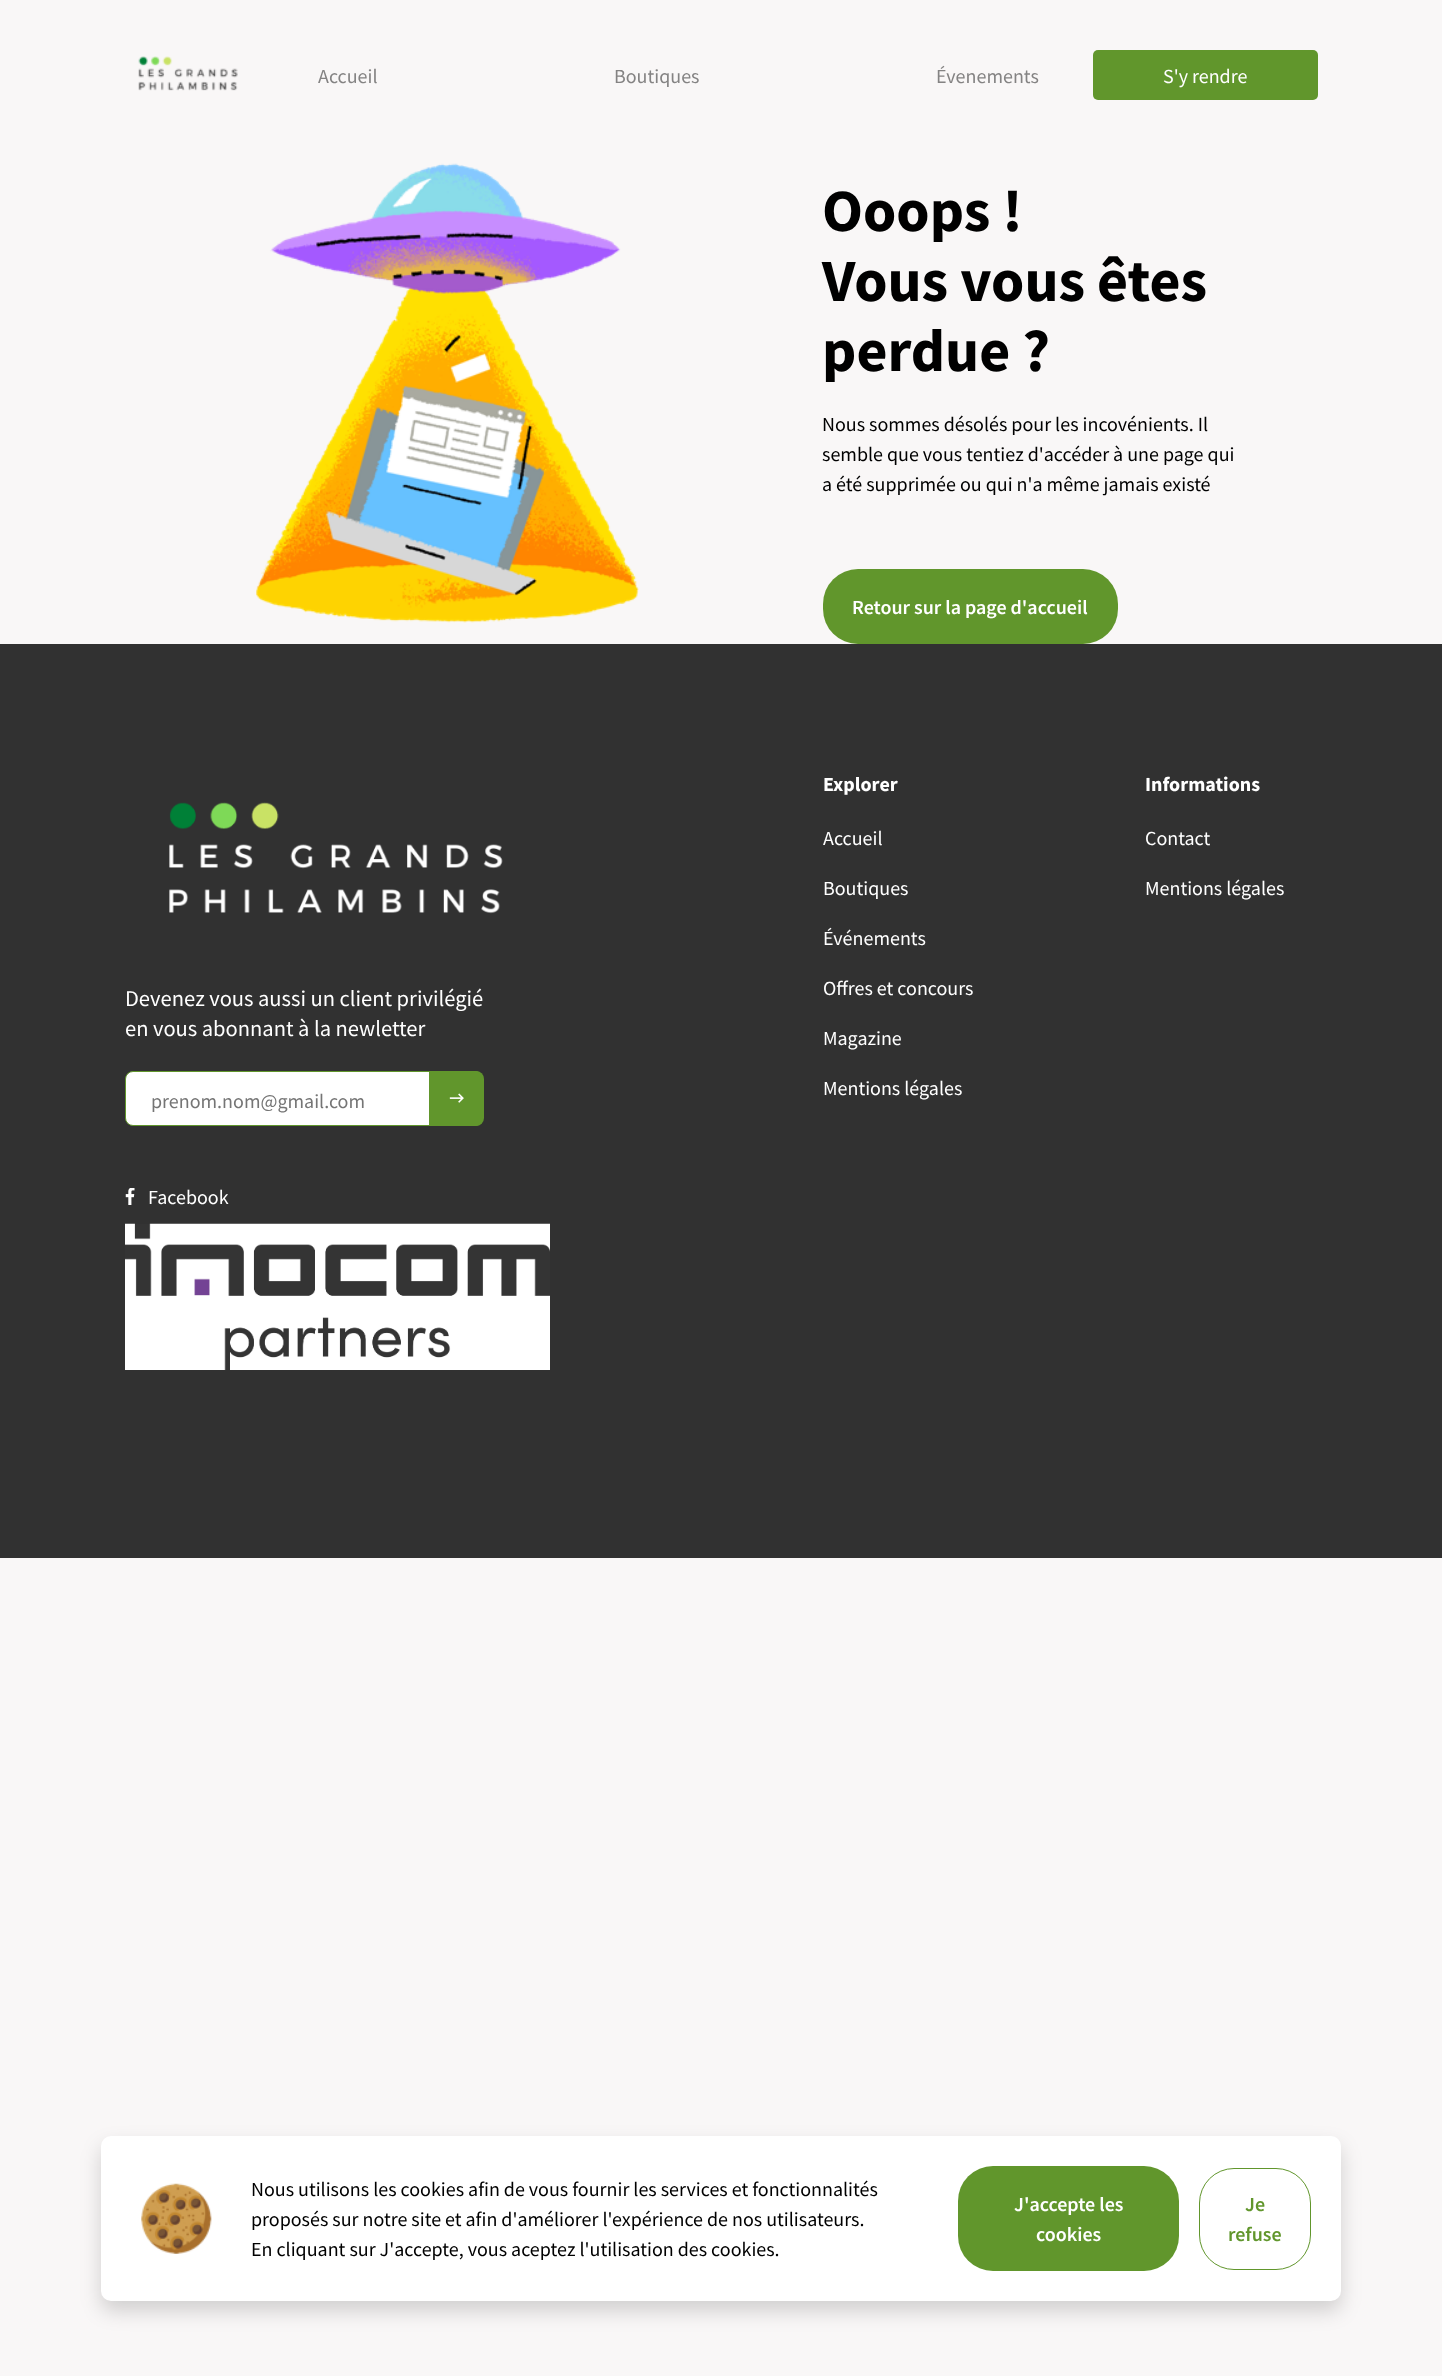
async function draw(canvas) {
  canvas.width = 1442;
  canvas.height = 2376;
  const ctx = canvas.getContext('2d');
  ctx.miterLimit = 4;
  ctx.fontKerning = 'normal';
  function label(s, x, y, font, color) {
    ctx.font = font;
    ctx.fillStyle = color;
    ctx.fillText(s, x, y);
  }
  function rect(x, y, w, h, color) {
    ctx.fillStyle = color;
    ctx.fillRect(x, y, w, h);
  }
  function roundedRect(x, y, w, h, r, color) {
    ctx.fillStyle = color;
    ctx.beginPath();
    ctx.roundRect(x, y, w, h, r);
    ctx.fill();
  }
  async function image(src, x, y, w, h) {
    const img = new Image();
    img.src = src;
    await img.decode();
    ctx.drawImage(img, x, y, w, h);
  }

  rect(0, 0, 1442, 2376, '#f9f7f7');
  await image('assets/img1.png', 138, 56, 100, 35);
  label('Accueil', 318, 83, '20px Source Sans Pro', '#848383');
  label('Boutiques', 614, 83, '20px Source Sans Pro', '#848383');
  label('Évenements', 936, 83, '20px Source Sans Pro', '#848383');
  roundedRect(1093, 50, 225, 50, 5, '#61962c');
  label('S\'y rendre', 1163, 83, '20px Source Sans Pro', '#fff');
  await image('assets/img2.png', 256, 163, 383, 460);
  label('Ooops !', 822, 231, 'bold 60px Source Sans Pro', '#000');
  label('Vous vous êtes', 822, 301, 'bold 60px Source Sans Pro', '#000');
  label('perdue ?', 822, 371, 'bold 60px Source Sans Pro', '#000');
  label('Nous sommes désolés pour les incovénients. Il', 822, 431, '20px Source Sans Pro', '#000');
  label('semble que vous tentiez d\'accéder à une page qui', 822, 461, '20px Source Sans Pro', '#000');
  label('a été supprimée ou qui n\'a même jamais existé', 822, 491, '20px Source Sans Pro', '#000');
  roundedRect(823, 569, 295, 75, 35, '#61962c');
  label('Retour sur la page d\'accueil', 852, 614, '600 20px Source Sans Pro', '#fff');
  rect(0, 644, 1442, 914, '#313131');
  await image('assets/img3.png', 169, 802, 334, 112);
  label('Devenez vous aussi un client privilégié', 125, 1006, '22.5px Source Sans Pro', '#fff');
  label('en vous abonnant à la newletter', 125, 1036, '22.5px Source Sans Pro', '#fff');
  ctx.beginPath();
  ctx.roundRect(125.5, 1071.5, 357, 54, 7.5);
  ctx.fill();
  ctx.strokeStyle = '#61962c';
  ctx.stroke();
  label('prenom.nom@gmail.com', 151, 1108, '20px Source Sans Pro', '#757575');
  ctx.fillStyle = '#61962c';
  ctx.beginPath();
  ctx.roundRect(429, 1071, 55, 55, [0, 8, 8, 0]);
  ctx.fill();
  await image('assets/img4.png', 449, 1093, 15, 10);
  await image('assets/img5.png', 125, 1188, 10, 17);
  label('Facebook', 148, 1204, '20px Source Sans Pro', '#fff');
  await image('assets/img6.png', 125, 1223, 425, 147);
  label('Explorer', 823, 791, 'bold 20px Source Sans Pro', '#fff');
  label('Accueil', 823, 845, '20px Source Sans Pro', '#fff');
  label('Boutiques', 823, 895, '20px Source Sans Pro', '#fff');
  label('Événements', 823, 945, '20px Source Sans Pro', '#fff');
  label('Offres et concours', 823, 995, '20px Source Sans Pro', '#fff');
  label('Magazine', 823, 1045, '20px Source Sans Pro', '#fff');
  label('Mentions légales', 823, 1095, '20px Source Sans Pro', '#fff');
  label('Informations', 1145, 791, 'bold 20px Source Sans Pro', '#fff');
  label('Contact', 1145, 845, '20px Source Sans Pro', '#fff');
  label('Mentions légales', 1145, 895, '20px Source Sans Pro', '#fff');
  ctx.fillStyle = '#00000029';
  ctx.filter = 'blur(10px)';
  ctx.beginPath();
  ctx.roundRect(101, 2146, 1240, 165, 10);
  ctx.fill();
  ctx.filter = 'none';
  roundedRect(101, 2136, 1240, 165, 10, '#fff');
  await image('assets/img7.png', 141, 2183, 71, 71);
  label('Nous utilisons les cookies afin de vous fournir les services et fonctionnalités', 251, 2196, '20px Source Sans Pro', '#000');
  label('proposés sur notre site et afin d\'améliorer l\'expérience de nos utilisateurs.', 251, 2226, '20px Source Sans Pro', '#000');
  label('En cliquant sur J\'accepte, vous aceptez l\'utilisation des cookies.', 251, 2256, '20px Source Sans Pro', '#000');
  roundedRect(958, 2166, 221, 105, 35, '#61962c');
  label('J\'accepte les', 1014, 2211, '600 20px Source Sans Pro', '#fff');
  label('cookies', 1036, 2241, '600 20px Source Sans Pro', '#fff');
  ctx.beginPath();
  ctx.roundRect(1199.5, 2168.5, 111, 101, 34.5);
  ctx.stroke();
  label('Je', 1245, 2211, '600 20px Source Sans Pro', '#61962c');
  label('refuse', 1228, 2241, '600 20px Source Sans Pro', '#61962c');
}

draw(document.querySelector('canvas'));
